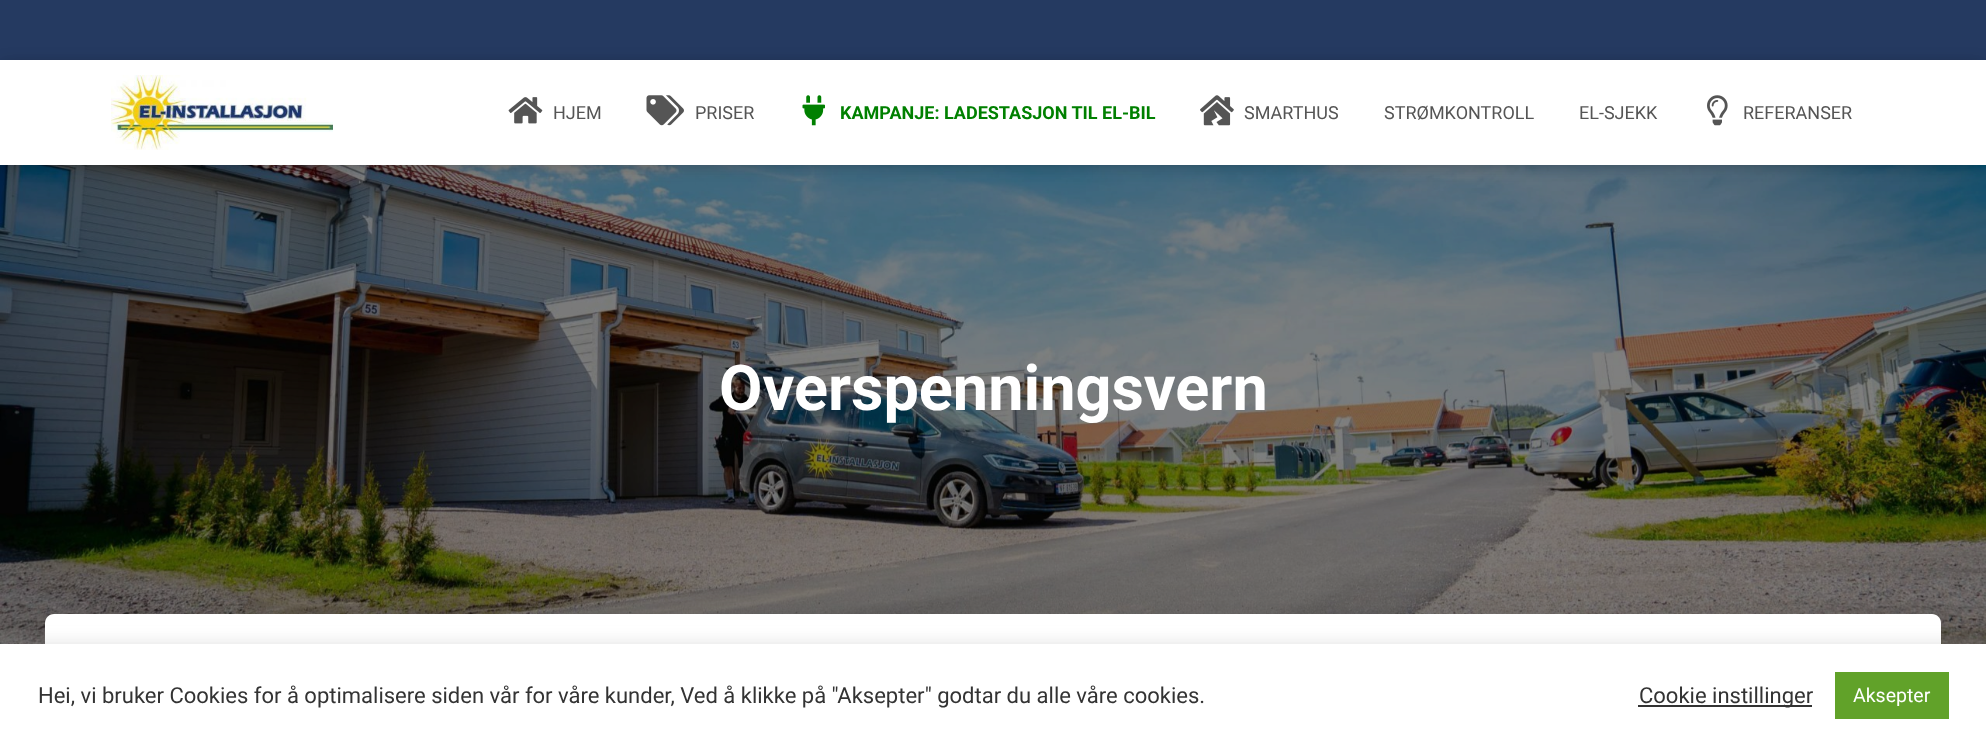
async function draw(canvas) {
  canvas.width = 1986;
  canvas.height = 746;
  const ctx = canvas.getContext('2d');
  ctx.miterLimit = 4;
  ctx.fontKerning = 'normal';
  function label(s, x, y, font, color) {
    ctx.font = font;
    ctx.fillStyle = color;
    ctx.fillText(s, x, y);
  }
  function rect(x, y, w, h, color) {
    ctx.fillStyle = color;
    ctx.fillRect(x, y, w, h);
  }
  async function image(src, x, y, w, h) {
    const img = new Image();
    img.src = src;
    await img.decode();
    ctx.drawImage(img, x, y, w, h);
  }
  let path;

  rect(0, 0, 1986, 746, '#253a61');
  await image('assets/img7.png', 0, 165, 1986, 479);
  ctx.fillStyle = '#0000001f';
  ctx.filter = 'blur(7.5px)';
  ctx.beginPath();
  ctx.rect(0, 62, 1986, 105);
  ctx.fill();
  ctx.filter = 'none';
  ctx.fillStyle = '#0000006b';
  ctx.filter = 'blur(7.5px)';
  ctx.beginPath();
  ctx.rect(9, 71, 1968, 87);
  ctx.fill();
  ctx.filter = 'none';
  rect(0, 60, 1986, 105, '#fff');
  await image('assets/img1.png', 111, 75, 222, 75);
  await image('assets/img2.png', 508, 97, 35, 27);
  label('HJEM', 553, 119, '18px Roboto', '#555');
  await image('assets/img3.png', 646, 95, 38, 31);
  label('PRISER', 695, 119, '18px Roboto', '#555');
  await image('assets/img4.png', 802, 95, 23, 31);
  label('KAMPANJE: LADESTASJON TIL EL-BIL', 840, 119, 'bold 18px Roboto', '#008000');
  await image('assets/img5.png', 1200, 95, 34, 31);
  label('SMARTHUS', 1244, 119, '18px Roboto', '#555');
  label('STRØMKONTROLL', 1384, 119, '18px Roboto', '#555');
  label('EL-SJEKK', 1579, 119, '18px Roboto', '#555');
  await image('assets/img6.png', 1707, 95, 21, 31);
  label('REFERANSER', 1743, 119, '18px Roboto', '#555');
  label('Overspenningsvern', 719, 410, 'bold 63px Roboto', '#fff');
  ctx.fillStyle = '#00000033';
  ctx.filter = 'blur(7.5px)';
  ctx.beginPath();
  ctx.roundRect(53, 633, 1881, 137, 1.5);
  ctx.fill();
  ctx.filter = 'none';
  ctx.fillStyle = '#0000001f';
  ctx.filter = 'blur(22.5px)';
  ctx.beginPath();
  ctx.roundRect(38, 615, 1911, 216, 17);
  ctx.fill();
  ctx.filter = 'none';
  ctx.fillStyle = '#fff';
  path = new Path2D('M54 614H1932C1937 614 1941 618 1941 623V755H45V623C45 618 49 614 54 614Z');
  ctx.fill(path);
  ctx.fillStyle = '#acabab4d';
  ctx.filter = 'blur(7.5px)';
  ctx.beginPath();
  ctx.rect(0, 642, 1986, 104);
  ctx.fill();
  ctx.filter = 'none';
  rect(0, 644, 1986, 102, '#fff');
  label('Hei, vi bruker Cookies for å optimalisere siden vår for våre kunder, Ved å klikke på "Aksepter" godtar du alle våre cookies.', 38, 703, '22px Roboto', '#333');
  rect(1638, 705, 174, 2, '#333');
  label('Cookie instillinger', 1639, 703, '22px Roboto', '#333');
  rect(1835, 672, 114, 47, '#61a229');
  label('Aksepter', 1853, 702, '19.5px Roboto', '#fff');
}

draw(document.querySelector('canvas'));
